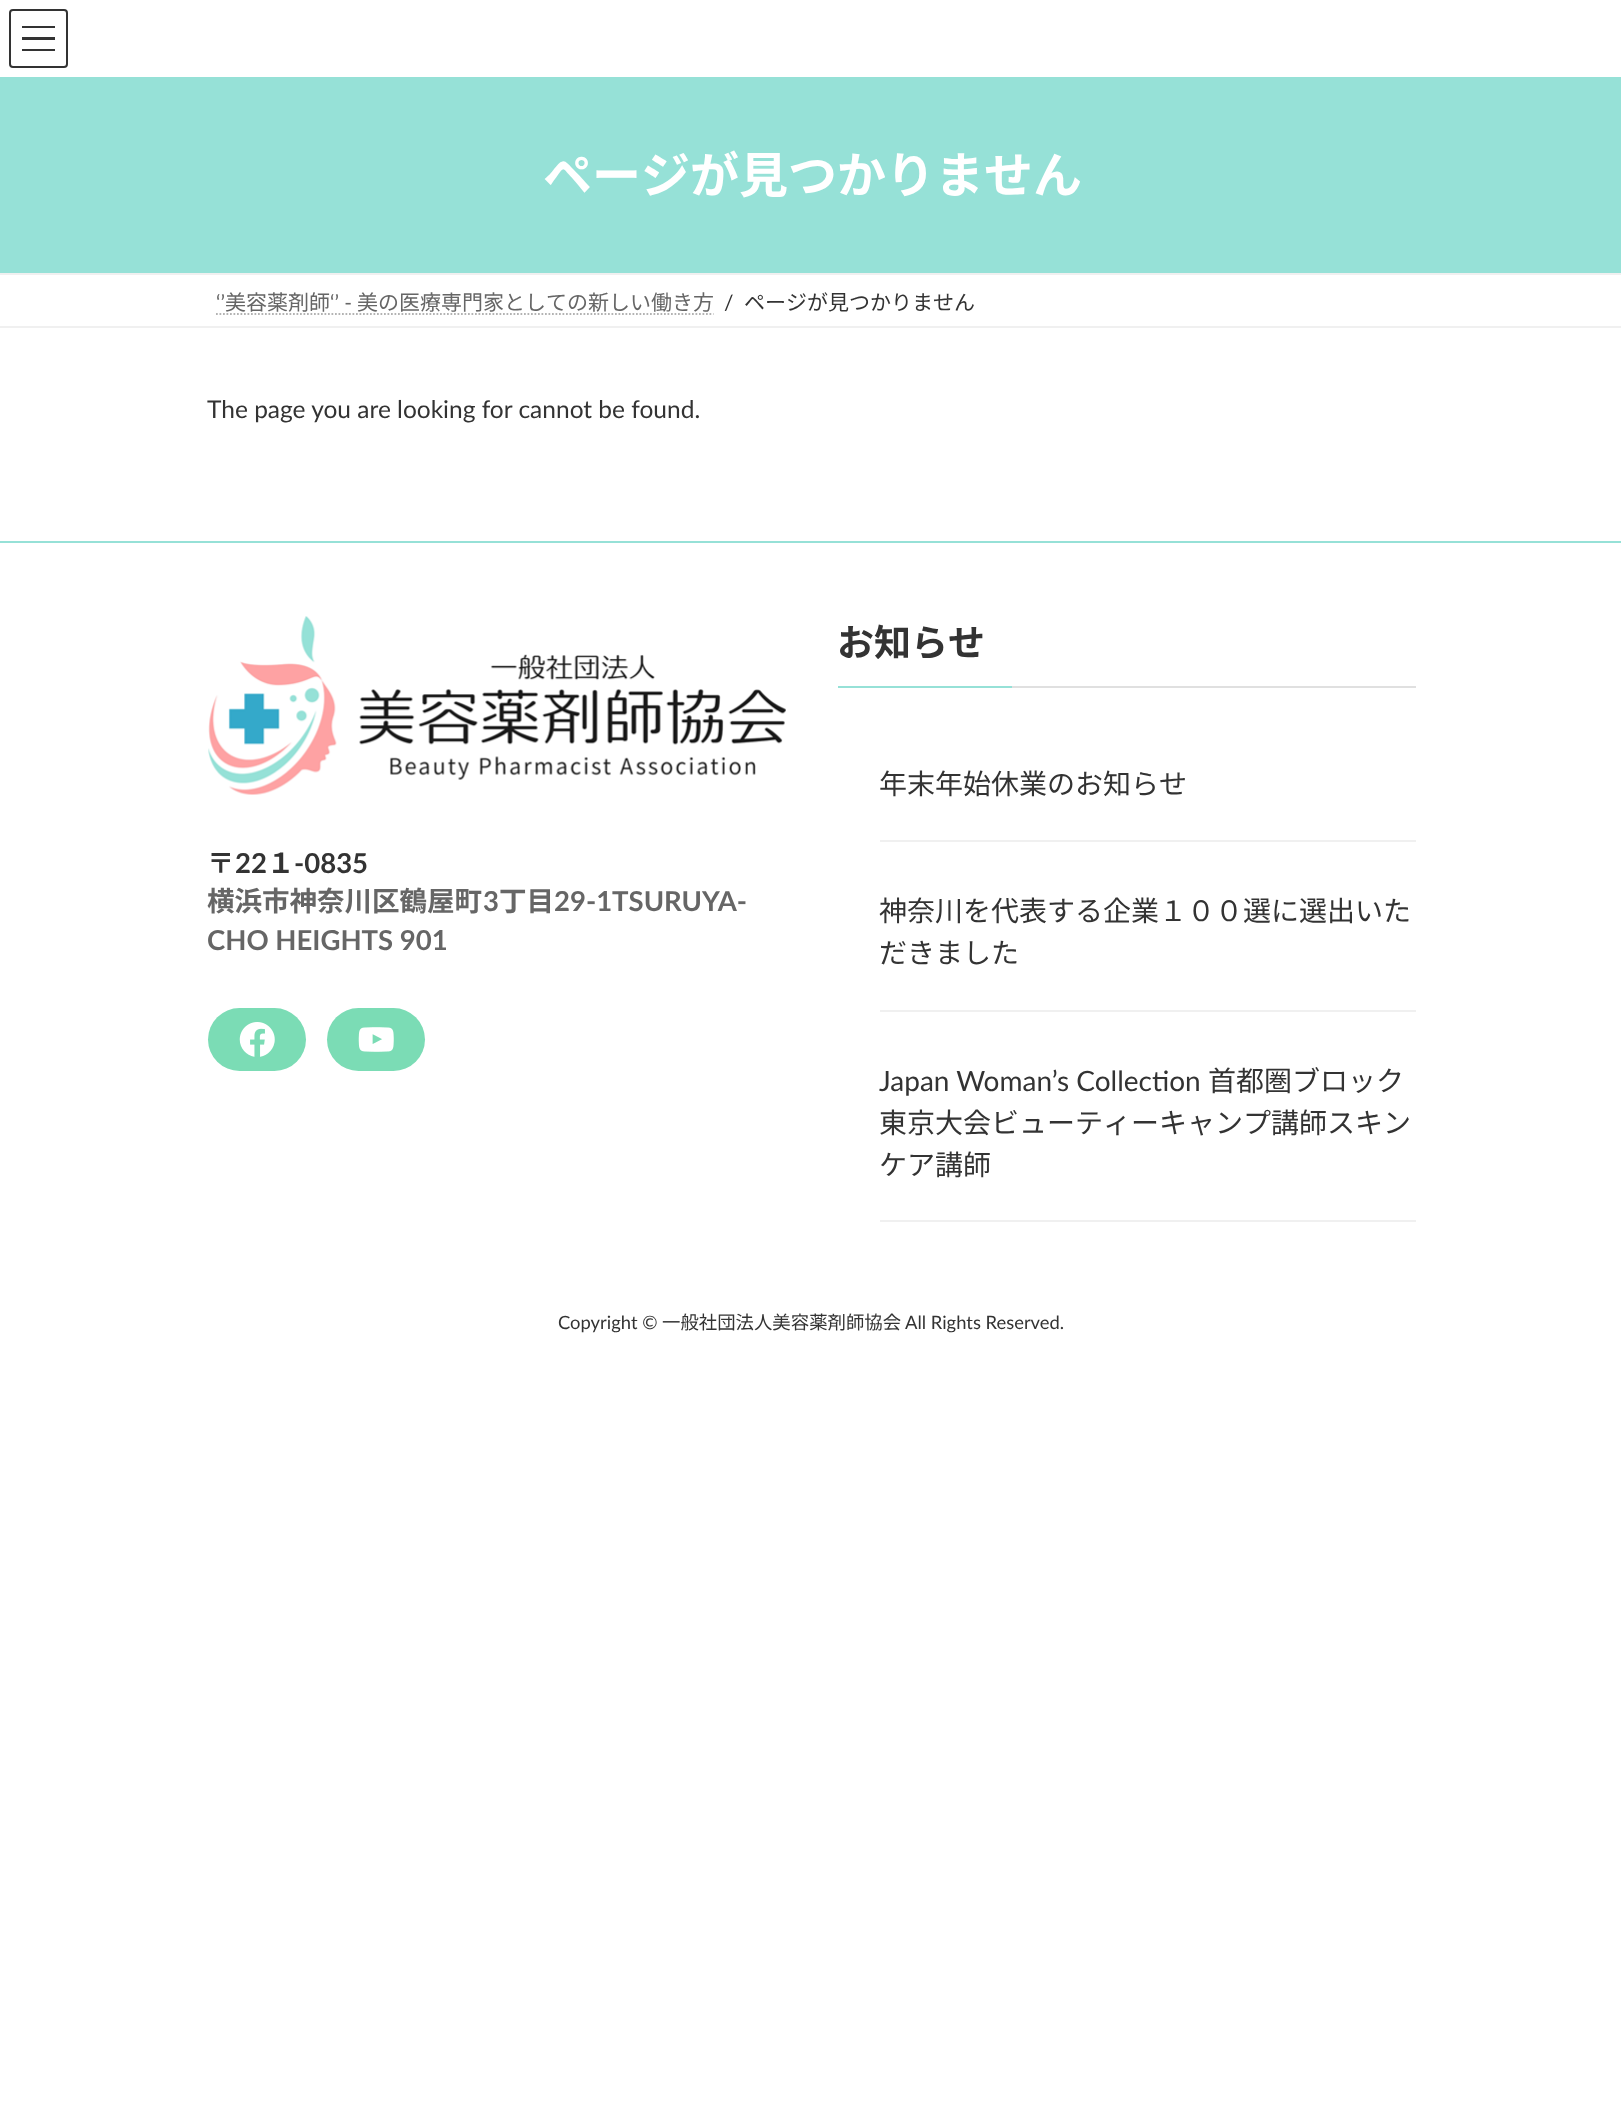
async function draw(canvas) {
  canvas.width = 1621;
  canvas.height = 2120;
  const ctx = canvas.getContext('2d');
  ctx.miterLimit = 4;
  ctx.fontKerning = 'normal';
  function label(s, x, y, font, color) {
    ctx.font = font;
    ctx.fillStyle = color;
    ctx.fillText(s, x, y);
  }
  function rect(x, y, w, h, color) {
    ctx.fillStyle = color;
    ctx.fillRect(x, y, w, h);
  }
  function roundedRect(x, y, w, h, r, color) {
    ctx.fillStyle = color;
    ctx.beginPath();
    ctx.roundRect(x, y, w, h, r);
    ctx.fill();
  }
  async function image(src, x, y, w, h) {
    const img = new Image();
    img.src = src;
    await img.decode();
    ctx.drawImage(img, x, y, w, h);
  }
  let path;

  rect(0, 0, 1621, 2120, '#fff');
  rect(22, 26, 33, 2, '#333');
  rect(22, 37, 33, 3, '#333');
  rect(22, 49, 33, 2, '#333');
  ctx.beginPath();
  ctx.roundRect(10, 10, 57, 57, 3);
  ctx.strokeStyle = '#333';
  ctx.lineWidth = 2;
  ctx.stroke();
  rect(0, 77, 1621, 196, '#96e1d7');
  label('ページが見つかりません', 543, 193, 'bold 49px Noto Sans JP', '#fff');
  rect(0, 273, 1621, 2, '#f0f0f0');
  rect(0, 326, 1621, 2, '#f0f0f0');
  label('‘’', 216, 310, '21px Lato', '#666');
  label('美容薬剤師', 225, 310, '21px Noto Sans JP', '#666');
  path = new Path2D('M216 314H713.5');
  ctx.strokeStyle = '#b3b3b3';
  ctx.lineWidth = 1.8;
  ctx.setLineDash([1.75, 1.75]);
  ctx.stroke(path);
  label('‘’ -', 330, 310, '21px Lato', '#666');
  label('美の医療専門家としての新しい働き方', 357, 310, '21px Noto Sans JP', '#666');
  label('/', 724, 310, '21px Lato', '#333');
  label('ページが見つかりません', 744, 310, '21px Noto Sans JP', '#333');
  label('The page you are looking for cannot be found.', 207, 418, '24.5px Lato', '#333');
  rect(0, 541, 1621, 2, '#96e1d7');
  await image('assets/img1.png', 208, 616, 578, 179);
  label('〒', 207, 873, 'bold 27.5px Noto Sans JP', '#333');
  label('22', 235, 873, 'bold 27.5px Lato', '#333');
  label('１', 267, 873, 'bold 27.5px Noto Sans JP', '#333');
  label('-0835', 294, 873, 'bold 27.5px Lato', '#333');
  label('横浜市神奈川区鶴屋町', 207, 911, 'bold 27.5px Noto Sans JP', '#666');
  label('3', 483, 911, 'bold 27.5px Lato', '#666');
  label('丁目', 499, 911, 'bold 27.5px Noto Sans JP', '#666');
  label('29-1TSURUYA-', 554, 911, 'bold 27.5px Lato', '#666');
  label('CHO HEIGHTS 901', 207, 950, 'bold 27.5px Lato', '#666');
  roundedRect(208, 1008, 98, 63, 31.5, '#7bdcb5');
  await image('assets/img2.png', 239, 1022, 36, 35);
  roundedRect(327, 1008, 98, 63, 31.5, '#7bdcb5');
  await image('assets/img3.png', 358, 1027, 36, 25);
  rect(1012, 686, 404, 2, '#e0e0e0');
  label('お知らせ', 837, 656, 'bold 37px Noto Sans JP', '#333');
  rect(838, 686, 174, 2, '#96e1d7');
  rect(880, 840, 536, 2, '#f0f0f0');
  label('年末年始休業のお知らせ', 879, 794, '28px Noto Sans JP', '#333');
  rect(880, 1010, 536, 2, '#f0f0f0');
  label('神奈川を代表する企業１００選に選出いた', 879, 921, '28px Noto Sans JP', '#333');
  label('だきました', 879, 963, '28px Noto Sans JP', '#333');
  rect(880, 1220, 536, 2, '#f0f0f0');
  label('Japan Woman’s Collection', 879, 1091, '28px Lato', '#333');
  label('首都圏ブロック', 1208, 1091, '28px Noto Sans JP', '#333');
  label('東京大会ビューティーキャンプ講師スキン', 879, 1133, '28px Noto Sans JP', '#333');
  label('ケア講師', 879, 1175, '28px Noto Sans JP', '#333');
  label('Copyright ©', 558, 1329, '18.4px Lato', '#333');
  label('一般社団法人美容薬剤師協会', 662, 1329, '18.4px Noto Sans JP', '#333');
  label('All Rights Reserved.', 905, 1329, '18.4px Lato', '#333');
}

draw(document.querySelector('canvas'));
